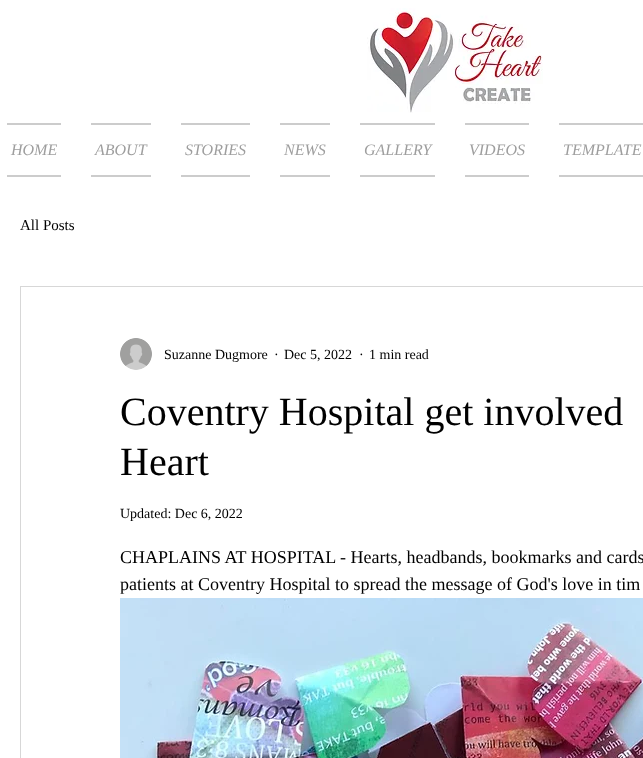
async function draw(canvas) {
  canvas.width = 643;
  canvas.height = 758;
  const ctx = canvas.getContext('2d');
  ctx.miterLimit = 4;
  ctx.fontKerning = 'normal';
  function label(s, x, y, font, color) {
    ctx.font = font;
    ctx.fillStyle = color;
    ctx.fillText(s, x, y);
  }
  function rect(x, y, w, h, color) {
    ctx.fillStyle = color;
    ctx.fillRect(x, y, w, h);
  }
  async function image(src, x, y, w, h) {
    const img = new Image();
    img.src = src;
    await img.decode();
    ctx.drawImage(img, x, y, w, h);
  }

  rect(0, 0, 643, 758, '#fff');
  await image('assets/img1.png', 367, 8, 176, 105);
  rect(7, 123, 54, 2, '#ccc');
  rect(7, 175, 54, 2, '#ccc');
  label('HOME', 11, 155, 'italic 16px Liberation Serif', '#9e9e9e');
  rect(91, 123, 60, 2, '#ccc');
  rect(91, 175, 60, 2, '#ccc');
  label('ABOUT', 95, 155, 'italic 16px Liberation Serif', '#9e9e9e');
  rect(181, 123, 69, 2, '#ccc');
  rect(181, 175, 69, 2, '#ccc');
  label('STORIES', 185, 155, 'italic 16px Liberation Serif', '#9e9e9e');
  rect(280, 123, 50, 2, '#ccc');
  rect(280, 175, 50, 2, '#ccc');
  label('NEWS', 284, 155, 'italic 16px Liberation Serif', '#9e9e9e');
  rect(360, 123, 75, 2, '#ccc');
  rect(360, 175, 75, 2, '#ccc');
  label('GALLERY', 364, 155, 'italic 16px Liberation Serif', '#9e9e9e');
  rect(465, 123, 64, 2, '#ccc');
  rect(465, 175, 64, 2, '#ccc');
  label('VIDEOS', 469, 155, 'italic 16px Liberation Serif', '#9e9e9e');
  rect(559, 123, 84, 2, '#ccc');
  rect(559, 175, 84, 2, '#ccc');
  label('TEMPLATE', 563, 155, 'italic 16px Liberation Serif', '#9e9e9e');
  label('All Posts', 20, 230, '15px Liberation Serif', '#000');
  ctx.strokeStyle = '#d7d7d7';
  ctx.strokeRect(20.5, 286.5, 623, 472);
  await image('assets/img2.png', 120, 338, 32, 32);
  label('Suzanne Dugmore', 164, 359, '14px Liberation Serif', '#000');
  label('·', 274, 359, '14px Liberation Serif', '#000');
  label('Dec 5, 2022', 284, 359, '14px Liberation Serif', '#000');
  label('·', 359, 359, '14px Liberation Serif', '#000');
  label('1 min read', 369, 359, '14px Liberation Serif', '#000');
  label('Coventry Hospital get involved', 120, 425, '40px Liberation Serif', '#000');
  label('Heart', 120, 475, '40px Liberation Serif', '#000');
  label('Updated: Dec 6, 2022', 120, 518, '14px Liberation Serif', '#000');
  label('CHAPLAINS AT HOSPITAL - Hearts, headbands, bookmarks and cards', 120, 563, '18px Liberation Serif', '#000');
  label('patients at Coventry Hospital to spread the message of God\'s love in tim', 120, 590, '18px Liberation Serif', '#000');
  await image('assets/img3.png', 120, 598, 523, 160);
}

draw(document.querySelector('canvas'));
